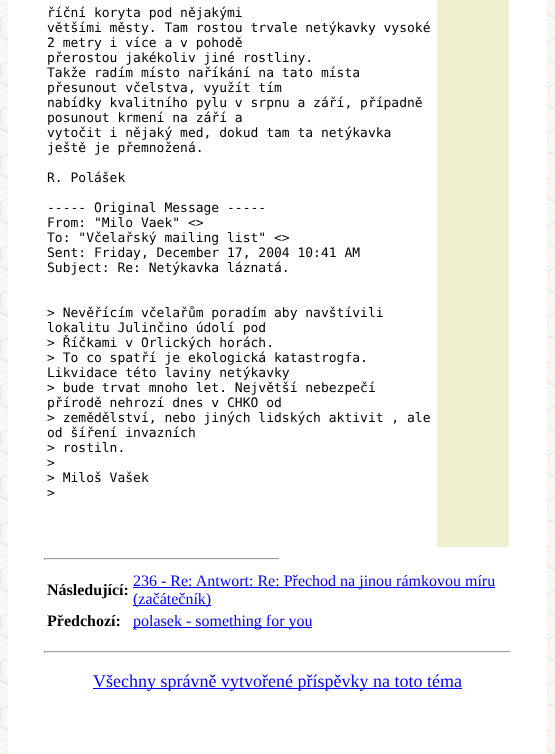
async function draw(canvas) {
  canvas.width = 555;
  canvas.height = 754;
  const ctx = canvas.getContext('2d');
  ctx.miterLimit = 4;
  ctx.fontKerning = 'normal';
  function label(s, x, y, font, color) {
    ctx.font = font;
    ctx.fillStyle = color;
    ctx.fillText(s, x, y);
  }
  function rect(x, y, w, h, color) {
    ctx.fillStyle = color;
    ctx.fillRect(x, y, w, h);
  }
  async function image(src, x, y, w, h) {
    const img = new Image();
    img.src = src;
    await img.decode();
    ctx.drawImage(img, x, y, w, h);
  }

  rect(0, 0, 555, 754, '#fff');
  await image('assets/img1.png', 0, 0, 555, 754);
  rect(8, 0, 539, 754, '#fff');
  label('říční koryta pod nějakými', 47, 17, '13px DejaVu Sans Mono', '#000');
  label('většími městy. Tam rostou trvale netýkavky vysoké', 47, 32, '13px DejaVu Sans Mono', '#000');
  label('2 metry i více a v pohodě', 47, 47, '13px DejaVu Sans Mono', '#000');
  label('přerostou jakékoliv jiné rostliny.', 47, 62, '13px DejaVu Sans Mono', '#000');
  label('Takže radím místo naříkání na tato místa', 47, 77, '13px DejaVu Sans Mono', '#000');
  label('přesunout včelstva, využít tím', 47, 92, '13px DejaVu Sans Mono', '#000');
  label('nabídky kvalitního pylu v srpnu a září, případně', 47, 107, '13px DejaVu Sans Mono', '#000');
  label('posunout krmení na září a', 47, 122, '13px DejaVu Sans Mono', '#000');
  label('vytočit i nějaký med, dokud tam ta netýkavka', 47, 137, '13px DejaVu Sans Mono', '#000');
  label('ještě je přemnožená.', 47, 152, '13px DejaVu Sans Mono', '#000');
  label('R. Polášek', 47, 182, '13px DejaVu Sans Mono', '#000');
  label('----- Original Message -----', 47, 212, '13px DejaVu Sans Mono', '#000');
  label('From: "Milo Vaek" <>', 47, 227, '13px DejaVu Sans Mono', '#000');
  label('To: "Včelařský mailing list" <>', 47, 242, '13px DejaVu Sans Mono', '#000');
  label('Sent: Friday, December 17, 2004 10:41 AM', 47, 257, '13px DejaVu Sans Mono', '#000');
  label('Subject: Re: Netýkavka láznatá.', 47, 272, '13px DejaVu Sans Mono', '#000');
  label('> Nevěřícím včelařům poradím aby navštívili', 47, 317, '13px DejaVu Sans Mono', '#000');
  label('lokalitu Julinčino údolí pod', 47, 332, '13px DejaVu Sans Mono', '#000');
  label('> Říčkami v Orlických horách.', 47, 347, '13px DejaVu Sans Mono', '#000');
  label('> To co spatří je ekologická katastrogfa.', 47, 362, '13px DejaVu Sans Mono', '#000');
  label('Likvidace této laviny netýkavky', 47, 377, '13px DejaVu Sans Mono', '#000');
  label('> bude trvat mnoho let. Největší nebezpečí', 47, 392, '13px DejaVu Sans Mono', '#000');
  label('přírodě nehrozí dnes v CHKO od', 47, 407, '13px DejaVu Sans Mono', '#000');
  label('> zemědělství, nebo jiných lidských aktivit , ale', 47, 422, '13px DejaVu Sans Mono', '#000');
  label('od šíření invazních', 47, 437, '13px DejaVu Sans Mono', '#000');
  label('> rostiln.', 47, 452, '13px DejaVu Sans Mono', '#000');
  label('>', 47, 467, '13px DejaVu Sans Mono', '#000');
  label('> Miloš Vašek', 47, 482, '13px DejaVu Sans Mono', '#000');
  label('>', 47, 497, '13px DejaVu Sans Mono', '#000');
  rect(437, 0, 72, 547, '#f0f0d0');
  rect(44, 558, 236, 1, '#9f9f9f');
  rect(279, 558, 1, 2, '#eee');
  rect(44, 559, 236, 1, '#eee');
  rect(44, 558, 1, 2, '#9f9f9f');
  label('Následující:', 47, 595, 'bold 16px Liberation Serif', '#000');
  rect(133, 587, 362, 1, '#00e');
  label('236 - Re: Antwort: Re: Přechod na jinou rámkovou míru', 133, 586, '16px Liberation Serif', '#00e');
  rect(133, 605, 78, 1, '#00e');
  label('(začátečník)', 133, 604, '16px Liberation Serif', '#00e');
  label('Předchozí:', 47, 626, 'bold 16px Liberation Serif', '#000');
  rect(133, 627, 179, 1, '#00e');
  label('polasek - something for you', 133, 626, '16px Liberation Serif', '#00e');
  rect(44, 651, 467, 1, '#9f9f9f');
  rect(510, 651, 1, 2, '#eee');
  rect(44, 652, 467, 1, '#eee');
  rect(44, 651, 1, 2, '#9f9f9f');
  rect(93, 688, 369, 1, '#00e');
  label('Všechny správně vytvořené příspěvky na toto téma', 93, 687, '18px Liberation Serif', '#00e');
}

draw(document.querySelector('canvas'));
